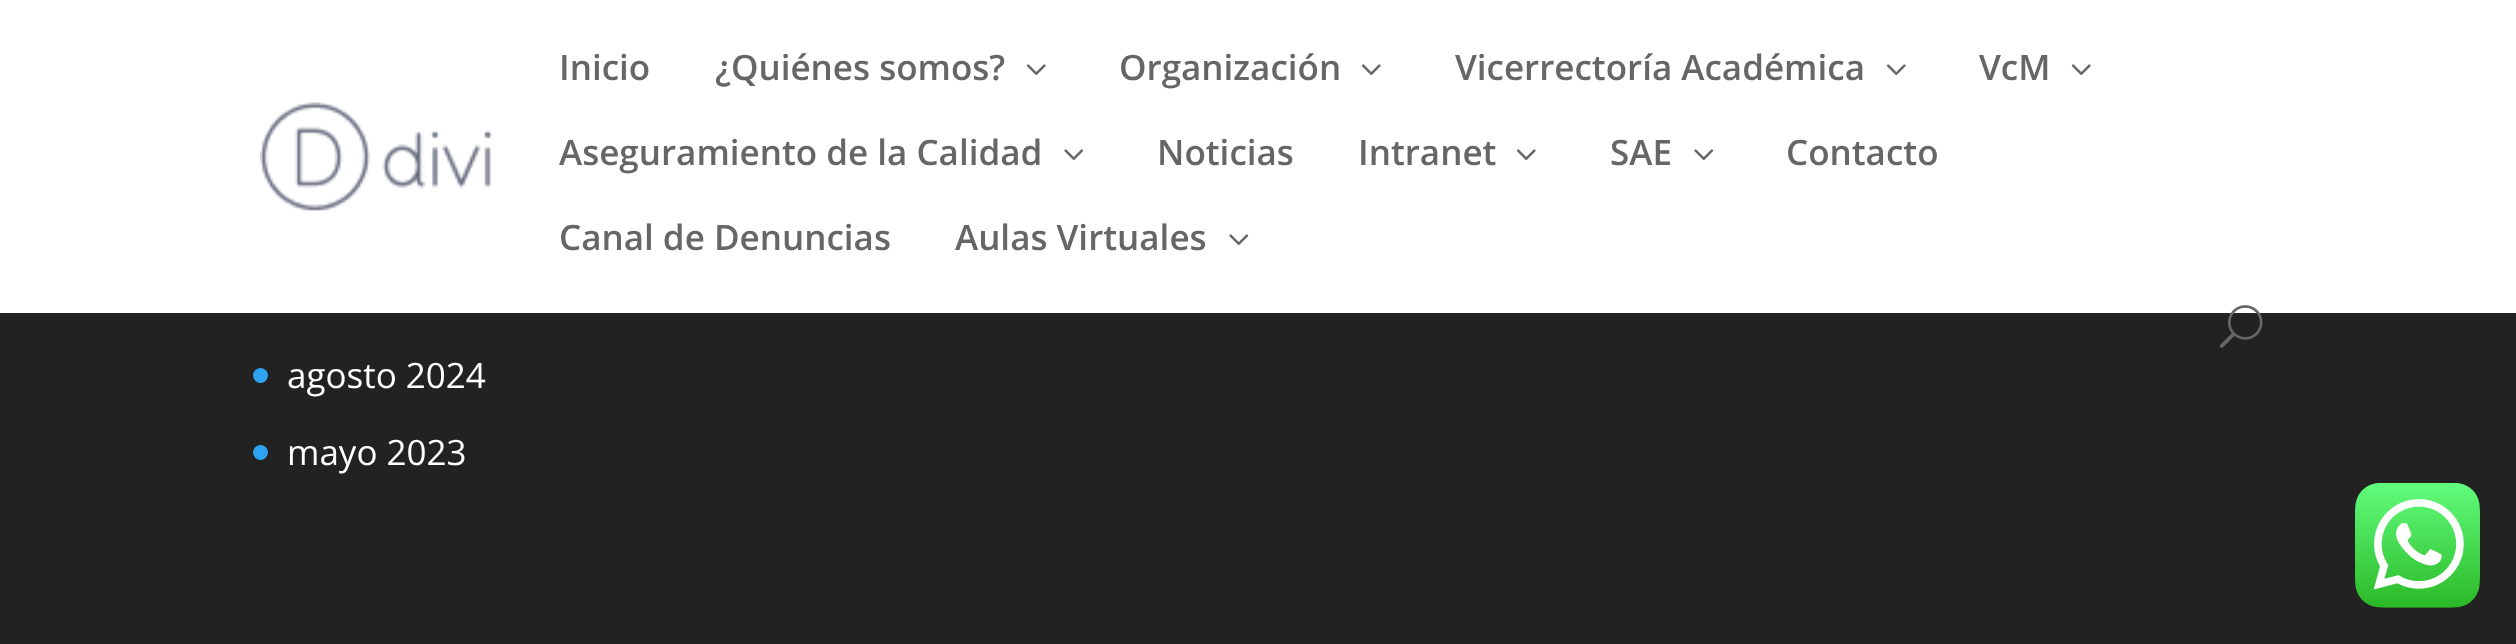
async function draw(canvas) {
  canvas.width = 2516;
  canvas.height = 644;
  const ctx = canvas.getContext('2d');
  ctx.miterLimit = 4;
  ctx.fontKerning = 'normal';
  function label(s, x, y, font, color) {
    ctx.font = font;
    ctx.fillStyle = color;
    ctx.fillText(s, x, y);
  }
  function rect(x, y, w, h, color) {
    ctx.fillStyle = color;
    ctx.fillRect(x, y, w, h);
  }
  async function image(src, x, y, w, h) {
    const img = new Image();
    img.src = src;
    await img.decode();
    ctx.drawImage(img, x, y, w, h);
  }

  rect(0, 0, 2516, 644, '#222');
  rect(0, 0, 2516, 313, '#fff');
  await image('assets/img1.png', 260, 102, 233, 109);
  label('Inicio', 559, 80, '600 35px Open Sans', '#666');
  label('¿Quiénes somos?', 715, 80, '600 35px Open Sans', '#666');
  await image('assets/img2.png', 1026, 64, 20, 11);
  label('Organización', 1119, 80, '600 35px Open Sans', '#666');
  await image('assets/img2.png', 1361, 64, 20, 11);
  label('Vicerrectoría Académica', 1455, 80, '600 35px Open Sans', '#666');
  await image('assets/img2.png', 1886, 64, 20, 11);
  label('VcM', 1979, 80, '600 35px Open Sans', '#666');
  await image('assets/img2.png', 2071, 64, 20, 11);
  label('Aseguramiento de la Calidad', 559, 165, '600 35px Open Sans', '#666');
  await image('assets/img3.png', 1064, 149, 20, 11);
  label('Noticias', 1157, 165, '600 35px Open Sans', '#666');
  label('Intranet', 1358, 165, '600 35px Open Sans', '#666');
  await image('assets/img2.png', 1516, 149, 20, 11);
  label('SAE', 1610, 165, '600 35px Open Sans', '#666');
  await image('assets/img3.png', 1694, 149, 20, 11);
  label('Contacto', 1786, 165, '600 35px Open Sans', '#666');
  label('Canal de Denuncias', 559, 250, '600 35px Open Sans', '#666');
  label('Aulas Virtuales', 955, 250, '600 35px Open Sans', '#666');
  await image('assets/img3.png', 1229, 234, 20, 11);
  await image('assets/img4.png', 2219, 305, 44, 43);
  ctx.fillStyle = '#2ea3f2';
  ctx.beginPath();
  ctx.arc(260.5, 375.5, 7.5, 0, 2 * Math.PI);
  ctx.fill();
  label('agosto 2024', 287, 388, '35px Open Sans', '#fff');
  ctx.fillStyle = '#2ea3f2';
  ctx.beginPath();
  ctx.arc(260.5, 452.5, 7.5, 0, 2 * Math.PI);
  ctx.fill();
  label('mayo 2023', 287, 465, '35px Open Sans', '#fff');
  await image('assets/img5.png', 2355, 483, 125, 125);
}

draw(document.querySelector('canvas'));
